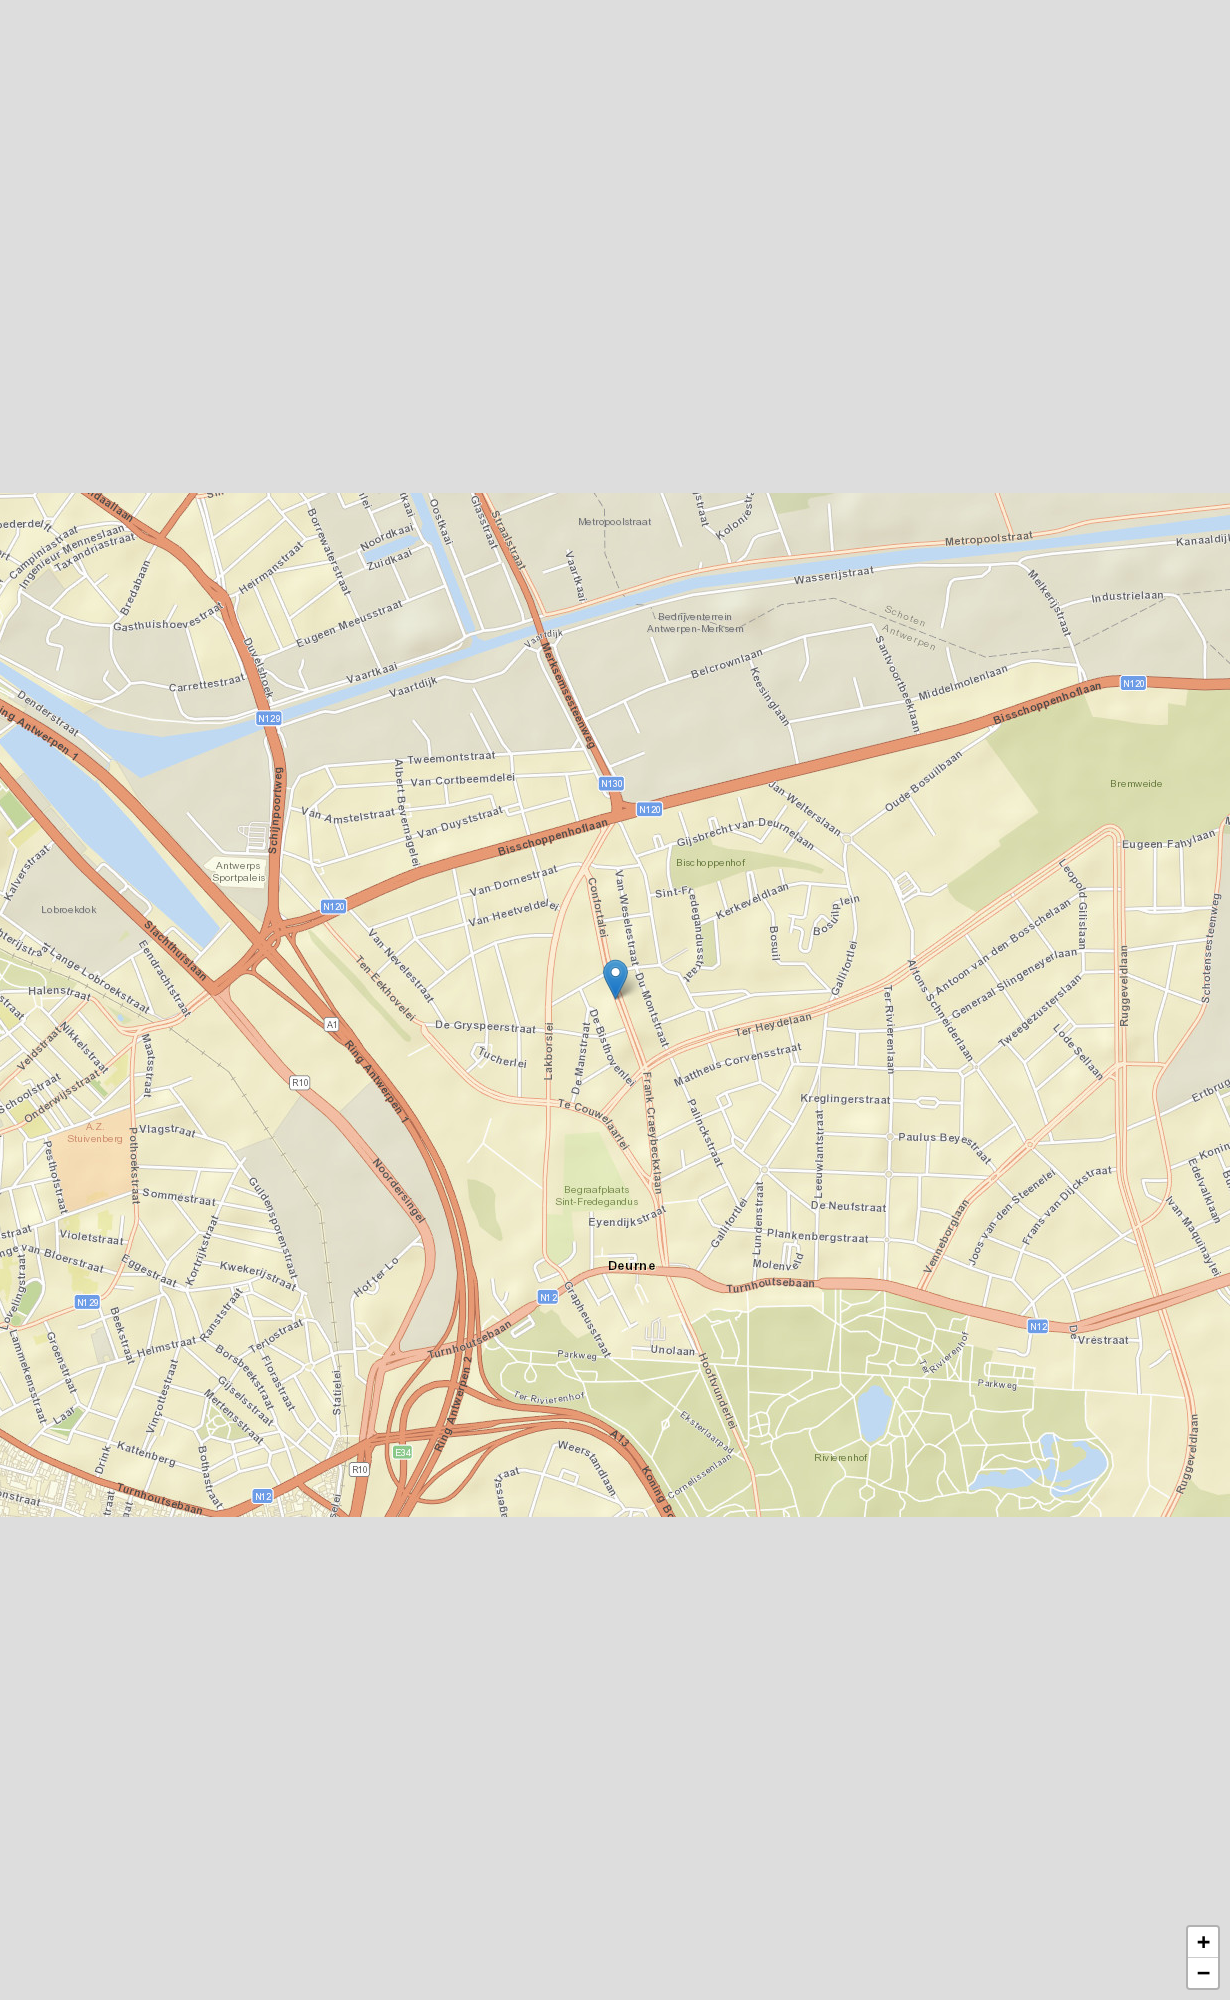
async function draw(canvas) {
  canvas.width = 1230;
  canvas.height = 2000;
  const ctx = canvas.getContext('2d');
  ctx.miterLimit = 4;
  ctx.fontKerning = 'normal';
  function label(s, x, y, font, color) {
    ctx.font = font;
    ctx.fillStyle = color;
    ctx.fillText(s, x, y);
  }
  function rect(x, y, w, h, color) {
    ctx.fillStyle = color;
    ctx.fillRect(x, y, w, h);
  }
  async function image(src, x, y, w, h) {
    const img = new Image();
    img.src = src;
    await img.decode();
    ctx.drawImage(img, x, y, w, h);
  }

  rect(0, 0, 1230, 2000, '#ddd');
  await image('assets/img1.png', 0, 493, 174, 256);
  await image('assets/img2.png', 174, 493, 256, 256);
  await image('assets/img3.png', 430, 493, 256, 256);
  await image('assets/img4.png', 686, 493, 256, 256);
  await image('assets/img5.png', 942, 493, 256, 256);
  await image('assets/img6.png', 1198, 493, 32, 256);
  await image('assets/img7.png', 0, 749, 174, 256);
  await image('assets/img8.png', 174, 749, 256, 256);
  await image('assets/img9.png', 430, 749, 256, 256);
  await image('assets/img10.png', 686, 749, 256, 256);
  await image('assets/img11.png', 942, 749, 256, 256);
  await image('assets/img12.png', 1198, 749, 32, 256);
  await image('assets/img13.png', 0, 1005, 174, 256);
  await image('assets/img14.png', 174, 1005, 256, 256);
  await image('assets/img15.png', 430, 1005, 256, 256);
  await image('assets/img16.png', 686, 1005, 256, 256);
  await image('assets/img17.png', 942, 1005, 256, 256);
  await image('assets/img18.png', 1198, 1005, 32, 256);
  await image('assets/img19.png', 0, 1261, 174, 256);
  await image('assets/img20.png', 174, 1261, 256, 256);
  await image('assets/img21.png', 430, 1261, 256, 256);
  await image('assets/img22.png', 686, 1261, 256, 256);
  await image('assets/img23.png', 942, 1261, 256, 256);
  await image('assets/img24.png', 1198, 1261, 32, 256);
  await image('assets/img26.png', 613, 972, 29, 28);
  await image('assets/img25.png', 603, 959, 25, 41);
  ctx.beginPath();
  ctx.roundRect(1187, 1926, 32, 63, 3);
  ctx.strokeStyle = '#b1b1b1';
  ctx.lineWidth = 2;
  ctx.stroke();
  ctx.fillStyle = '#fff';
  ctx.beginPath();
  ctx.roundRect(1188, 1927, 30, 31, [2, 2, 0, 0]);
  ctx.fill();
  rect(1188, 1957, 30, 1, '#ccc');
  label('+', 1197, 1949, 'bold 22px DejaVu Sans Mono', '#000');
  ctx.fillStyle = '#fff';
  ctx.beginPath();
  ctx.roundRect(1188, 1958, 30, 30, [0, 0, 2, 2]);
  ctx.fill();
  label('−', 1197, 1980, 'bold 22px DejaVu Sans Mono', '#000');
}

draw(document.querySelector('canvas'));
